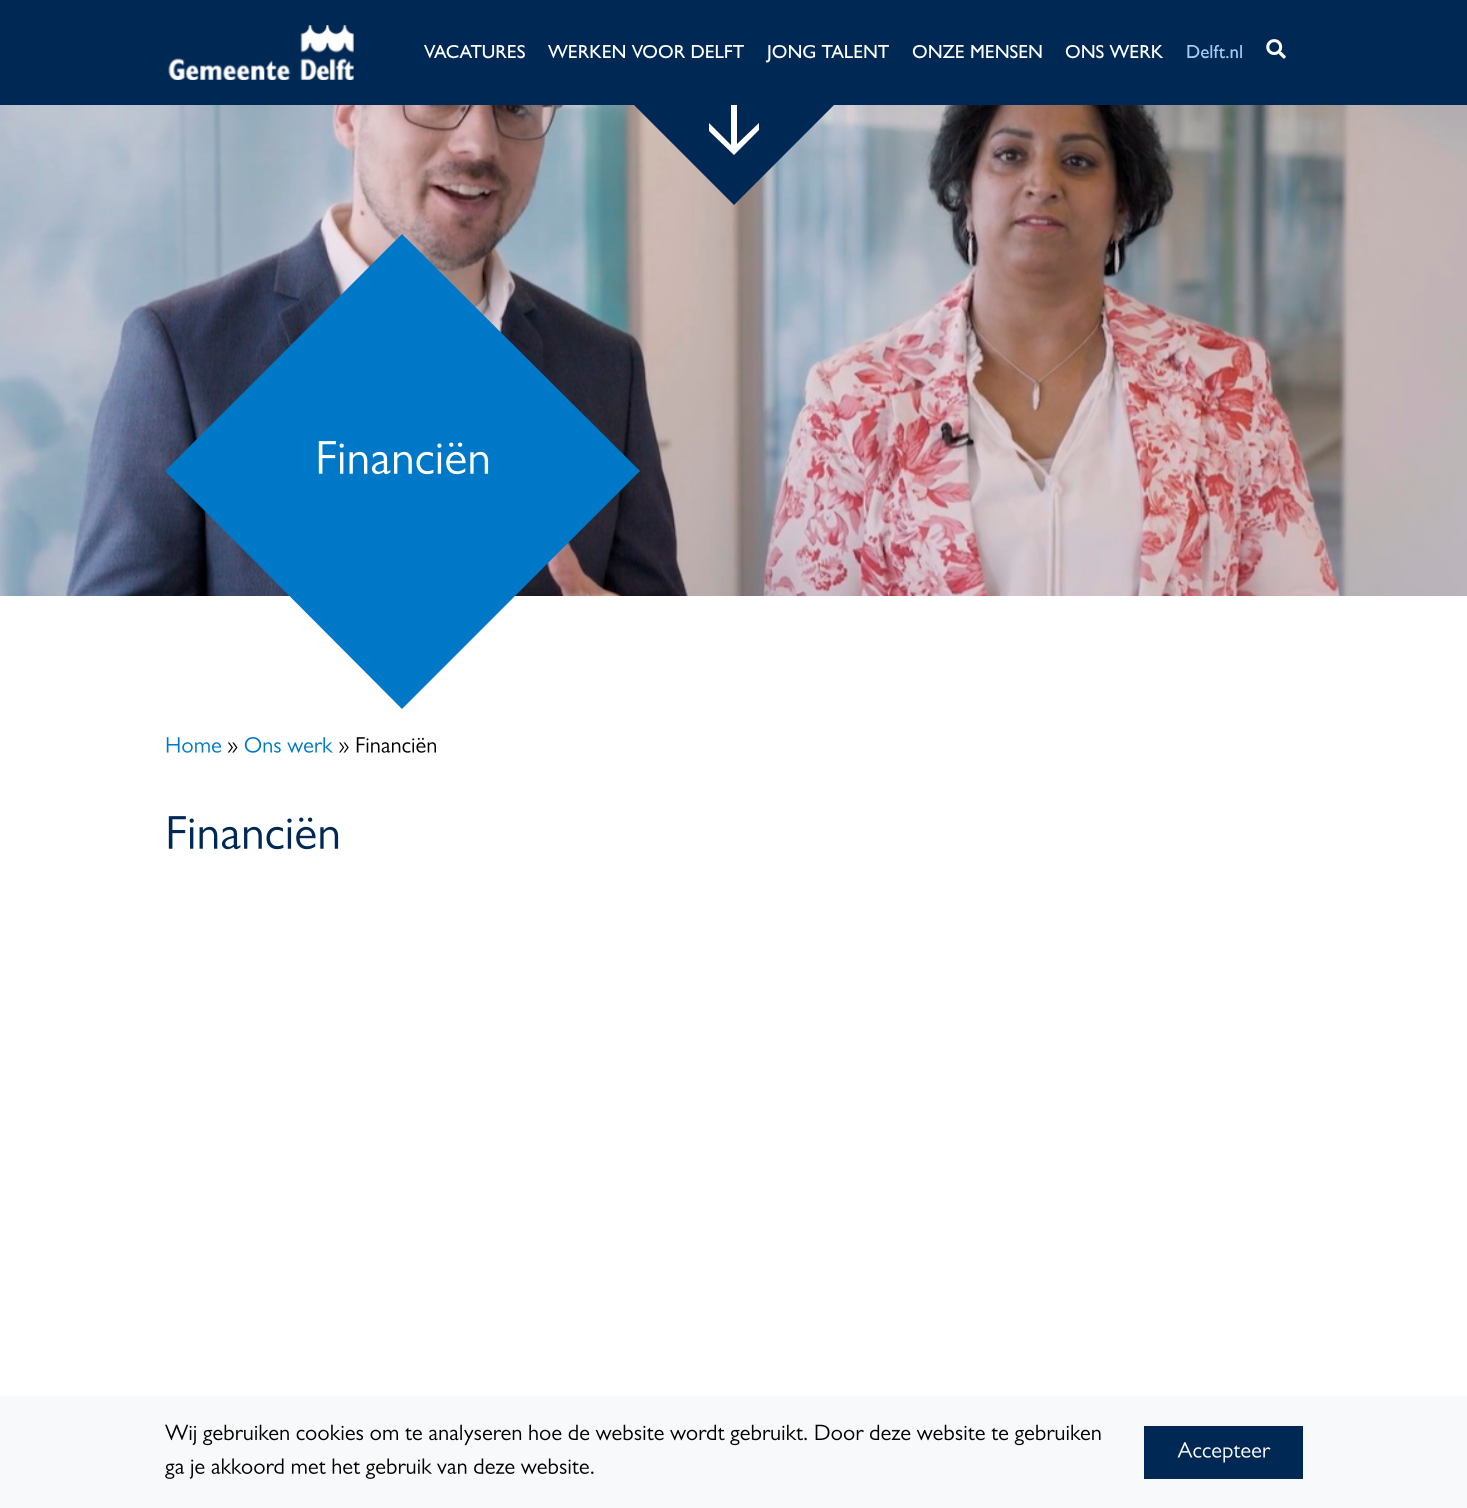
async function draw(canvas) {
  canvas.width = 1467;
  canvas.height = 1508;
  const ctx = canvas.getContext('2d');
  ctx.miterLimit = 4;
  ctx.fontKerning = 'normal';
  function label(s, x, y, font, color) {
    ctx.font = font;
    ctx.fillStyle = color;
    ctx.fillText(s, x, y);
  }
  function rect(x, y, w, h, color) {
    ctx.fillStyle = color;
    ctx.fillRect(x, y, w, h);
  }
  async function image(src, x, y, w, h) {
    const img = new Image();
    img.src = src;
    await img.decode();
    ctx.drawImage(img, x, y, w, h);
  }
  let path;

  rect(0, 0, 1467, 1508, '#fff');
  rect(0, 0, 1467, 105, '#002855');
  await image('assets/img1.png', 168, 25, 186, 55);
  label('VACATURES', 424, 58, '19px Gill Sans', '#fff');
  label('WERKEN VOOR DELFT', 548, 58, '19px Gill Sans', '#fff');
  label('JONG TALENT', 767, 58, '19px Gill Sans', '#fff');
  label('ONZE MENSEN', 912, 58, '19px Gill Sans', '#fff');
  label('ONS WERK', 1065, 58, '19px Gill Sans', '#fff');
  label('Delft.nl', 1186, 58, '19px Gill Sans', '#a3cbee');
  await image('assets/img2.png', 1266, 39, 20, 20);
  await image('assets/img3.png', 0, 105, 1467, 491);
  ctx.save();
  ctx.beginPath();
  ctx.rect(634, 105, 200, 100);
  ctx.clip();
  ctx.fillStyle = '#002855';
  path = new Path2D('M634 105L734 5L834 105L734 205Z');
  ctx.fill(path);
  ctx.restore();
  ctx.fillStyle = '#fff';
  path = new Path2D('M735 154L759 130V123L737 144V105H731V145L709 123V131L734 155Z');
  ctx.fill(path);
  ctx.fillStyle = '#0078c8';
  path = new Path2D('M165 471L402 234L640 471L402 709Z');
  ctx.fill(path);
  await image('assets/img4.png', 318, 441, 171, 34);
  await image('assets/img5.png', 166, 737, 55, 16);
  await image('assets/img6.png', 227, 742, 11, 11);
  await image('assets/img7.png', 244, 737, 89, 16);
  await image('assets/img8.png', 339, 742, 10, 11);
  await image('assets/img9.png', 356, 737, 80, 16);
  await image('assets/img10.png', 168, 816, 171, 34);
  rect(0, 1396, 1467, 112, '#f8f9fa');
  await image('assets/img11.png', 165, 1424, 936, 22);
  await image('assets/img12.png', 165, 1458, 429, 21);
  rect(1144, 1426, 159, 53, '#002855');
  await image('assets/img13.png', 1177, 1442, 94, 21);
}

draw(document.querySelector('canvas'));
